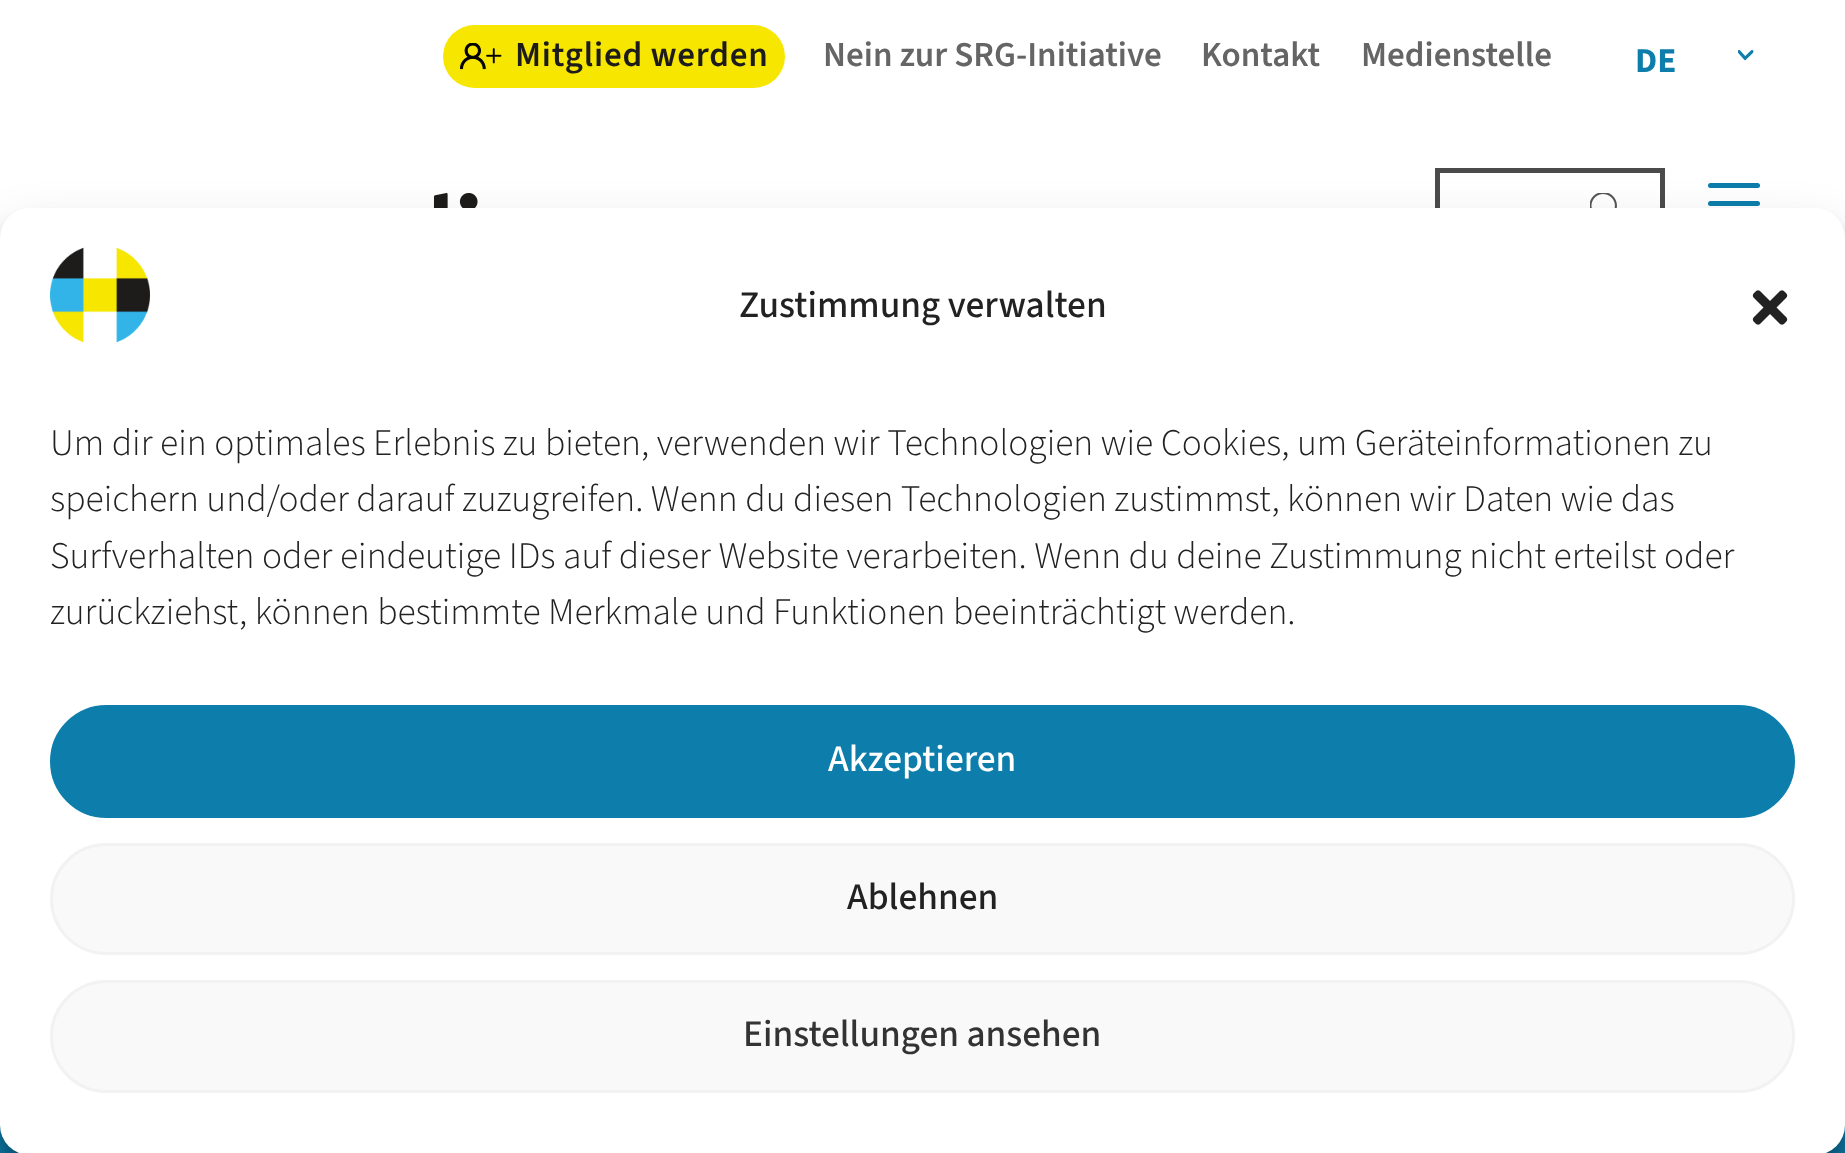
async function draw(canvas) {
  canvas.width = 1845;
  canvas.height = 1153;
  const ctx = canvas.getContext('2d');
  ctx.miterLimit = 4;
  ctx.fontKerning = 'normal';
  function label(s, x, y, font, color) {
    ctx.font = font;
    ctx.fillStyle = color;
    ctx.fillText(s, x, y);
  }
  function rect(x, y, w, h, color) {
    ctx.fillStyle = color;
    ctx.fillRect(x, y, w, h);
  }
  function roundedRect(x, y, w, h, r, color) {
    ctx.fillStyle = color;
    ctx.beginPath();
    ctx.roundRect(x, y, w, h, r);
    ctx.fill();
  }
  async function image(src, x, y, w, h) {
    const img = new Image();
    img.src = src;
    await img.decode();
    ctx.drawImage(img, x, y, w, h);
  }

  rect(0, 0, 1845, 1153, '#fff');
  roundedRect(443, 25, 342, 63, 31.5, '#f6e600');
  await image('assets/img1.png', 460, 43, 42, 27);
  ctx.letterSpacing = '0.75px';
  label('Mitglied werden', 515, 66, '600 35px "Source Sans 3"', '#1d1c1b');
  ctx.letterSpacing = '0px';
  label('Nein zur SRG-Initiative', 823, 66, '600 35px "Source Sans 3"', '#656565');
  label('Kontakt', 1201, 66, '600 35px "Source Sans 3"', '#656565');
  label('Medienstelle', 1361, 66, '600 35px "Source Sans 3"', '#656565');
  label('DE', 1635, 72, 'bold 35px "Source Sans 3"', '#0d7eac');
  await image('assets/img2.png', 1738, 50, 16, 11);
  await image('assets/img3.png', 433, 193, 45, 15);
  ctx.strokeStyle = '#4b4b4b';
  ctx.lineWidth = 5;
  ctx.strokeRect(1437.5, 170.5, 225, 77);
  await image('assets/img4.png', 1590, 193, 27, 15);
  roundedRect(1708, 183, 52, 5, 2.5, '#0d7eac');
  roundedRect(1708, 201, 52, 5, 2.5, '#0d7eac');
  rect(0, 1125, 1845, 28, '#0d7eac');
  ctx.fillStyle = '#0000003b';
  ctx.filter = 'blur(7.5px)';
  ctx.beginPath();
  ctx.roundRect(0, 223, 1845, 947, 30);
  ctx.fill();
  ctx.filter = 'none';
  ctx.fillStyle = '#00000030';
  ctx.filter = 'blur(25px)';
  ctx.beginPath();
  ctx.roundRect(0, 233, 1845, 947, 30);
  ctx.fill();
  ctx.filter = 'none';
  roundedRect(0, 208, 1845, 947, 30, '#fff');
  await image('assets/img5.png', 50, 247, 100, 96);
  label('Zustimmung verwalten', 739, 317, '500 37.5px "Source Sans 3"', '#222');
  await image('assets/img6.png', 1752, 290, 36, 35);
  label('Um dir ein optimales Erlebnis zu bieten, verwenden wir Technologien wie Cookies, um Geräteinformationen zu', 50, 455, '300 37.5px "Source Sans 3"', '#222');
  label('speichern und/oder darauf zuzugreifen. Wenn du diesen Technologien zustimmst, können wir Daten wie das', 50, 511, '300 37.5px "Source Sans 3"', '#222');
  label('Surfverhalten oder eindeutige IDs auf dieser Website verarbeiten. Wenn du deine Zustimmung nicht erteilst oder', 50, 568, '300 37.5px "Source Sans 3"', '#222');
  label('zurückziehst, können bestimmte Merkmale und Funktionen beeinträchtigt werden.', 50, 624, '300 37.5px "Source Sans 3"', '#222');
  ctx.fillStyle = '#0d7eac';
  ctx.beginPath();
  ctx.roundRect(51.5, 706.5, 1742, 110, 55);
  ctx.fill();
  ctx.strokeStyle = '#0d7eac';
  ctx.lineWidth = 3;
  ctx.stroke();
  label('Akzeptieren', 828, 771, '500 37.5px "Source Sans 3"', '#fff');
  ctx.fillStyle = '#f9f9f9';
  ctx.beginPath();
  ctx.roundRect(51.5, 844.5, 1742, 109, 54.5);
  ctx.fill();
  ctx.strokeStyle = '#f2f2f2';
  ctx.stroke();
  label('Ablehnen', 847, 909, '500 37.5px "Source Sans 3"', '#222');
  ctx.fillStyle = '#f9f9f9';
  ctx.beginPath();
  ctx.roundRect(51.5, 981.5, 1742, 110, 55);
  ctx.fill();
  ctx.stroke();
  label('Einstellungen ansehen', 743, 1046, '500 37.5px "Source Sans 3"', '#333');
}

draw(document.querySelector('canvas'));
